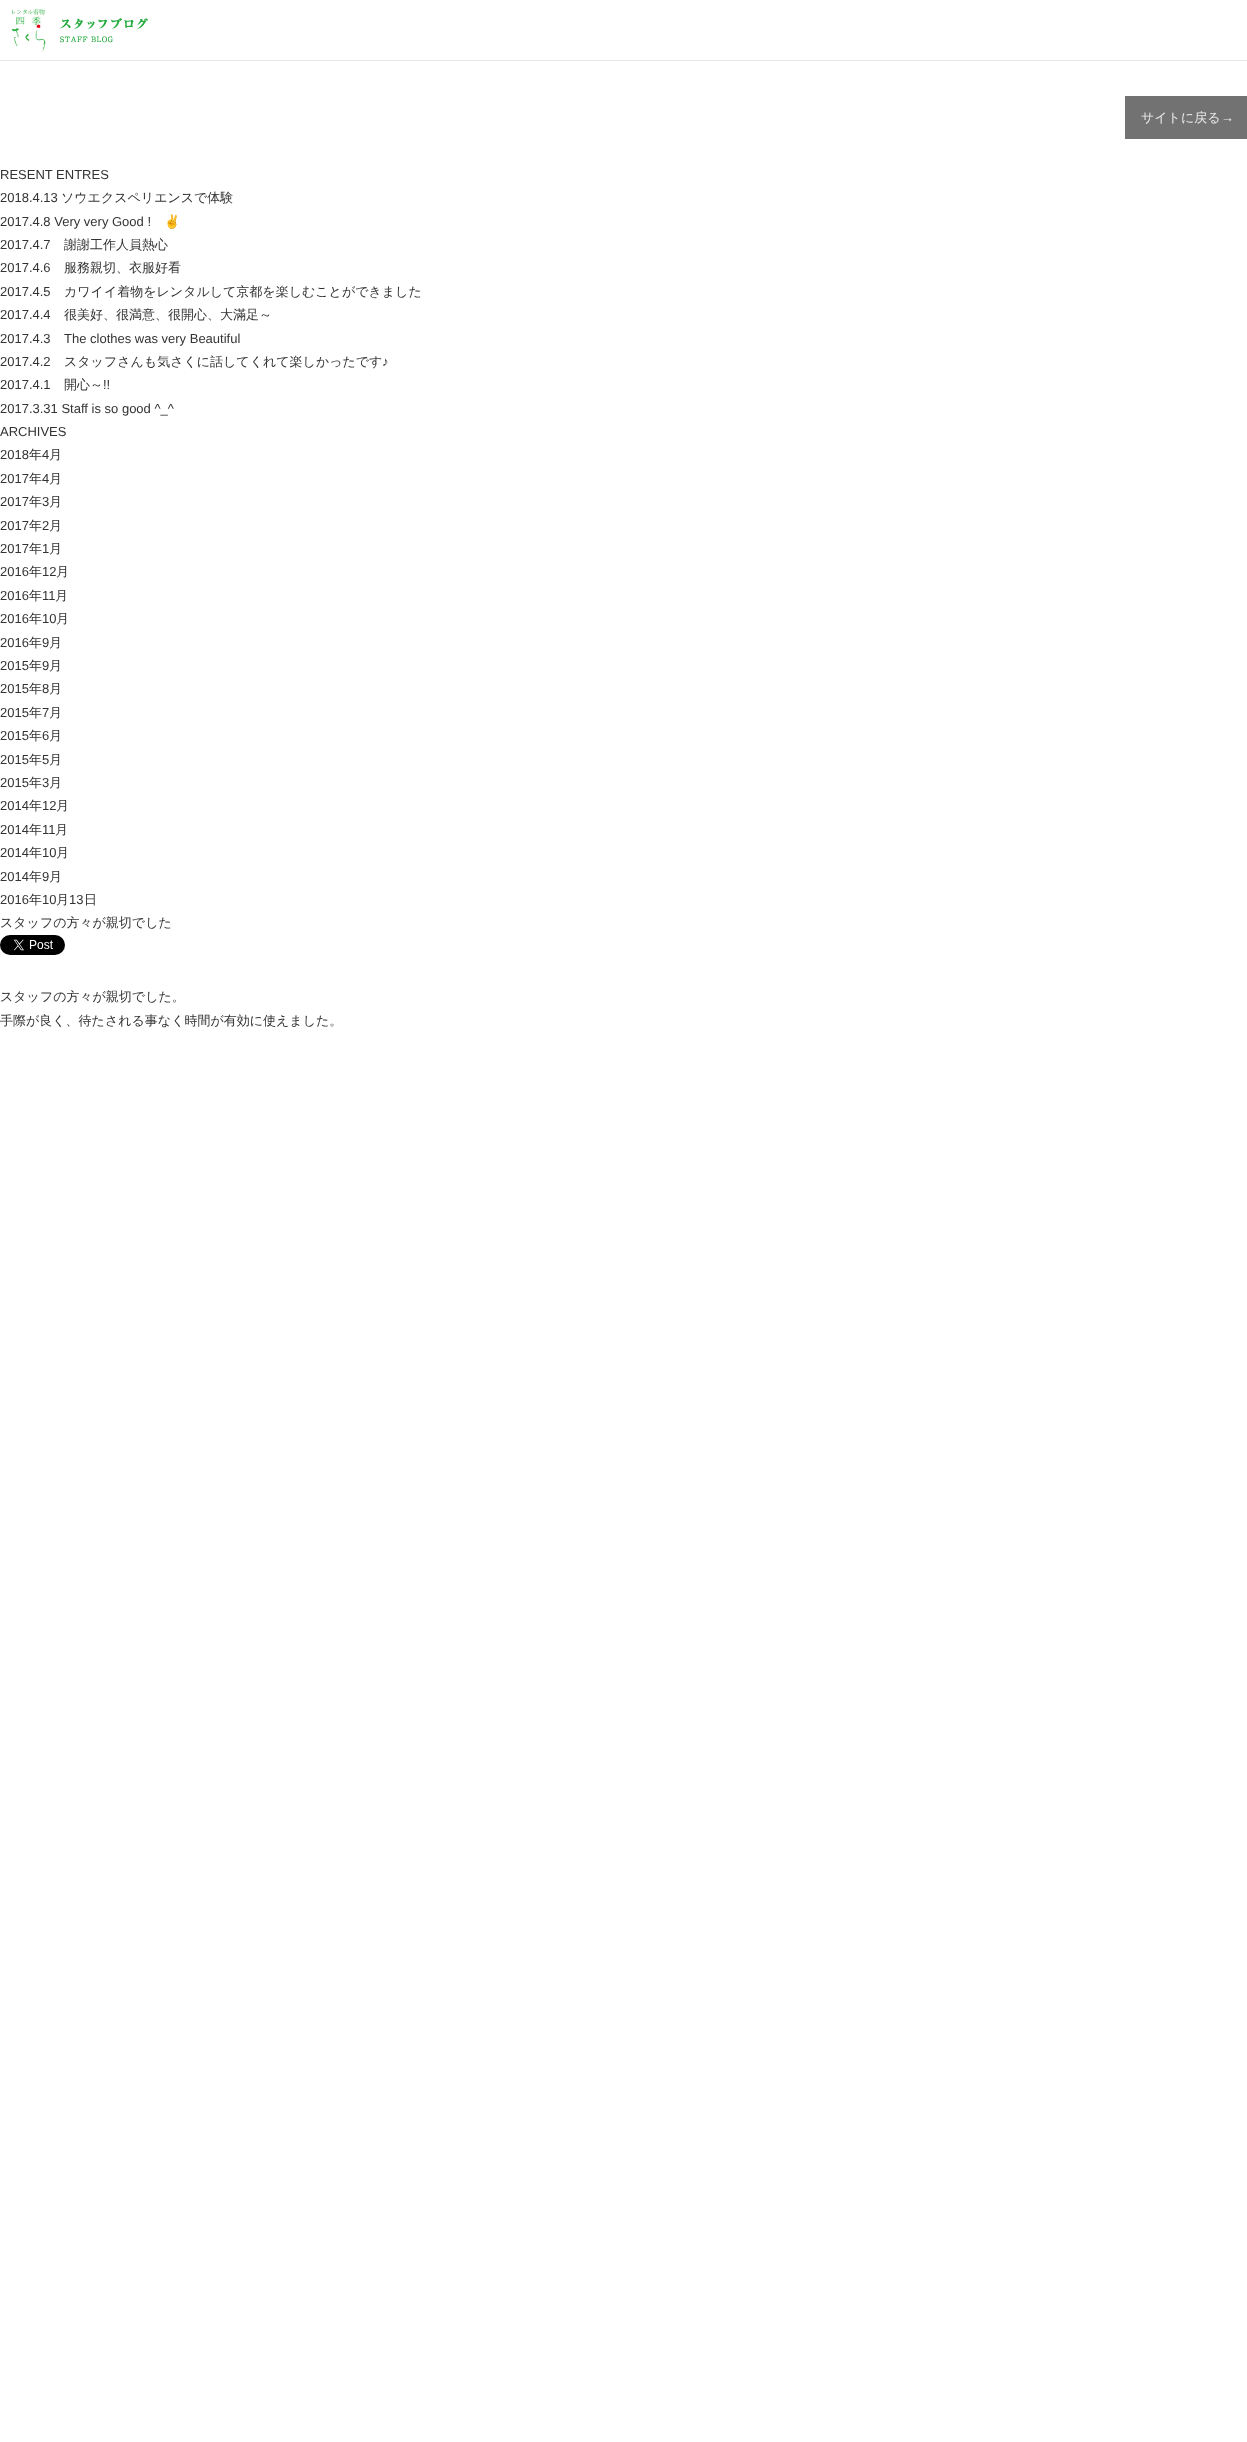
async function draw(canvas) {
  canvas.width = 1247;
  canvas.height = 2442;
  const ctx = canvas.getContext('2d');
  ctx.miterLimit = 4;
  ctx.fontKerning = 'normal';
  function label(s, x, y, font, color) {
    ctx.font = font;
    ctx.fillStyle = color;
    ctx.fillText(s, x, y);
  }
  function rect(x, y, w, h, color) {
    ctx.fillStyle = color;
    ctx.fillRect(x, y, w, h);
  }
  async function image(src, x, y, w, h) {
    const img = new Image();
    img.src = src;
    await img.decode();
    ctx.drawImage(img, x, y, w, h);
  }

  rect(0, 0, 1247, 2442, '#fff');
  rect(0, 60, 1247, 1, '#e8e8e8');
  await image('assets/img1.png', 12, 8, 136, 44);
  rect(1125, 96, 122, 43, '#727272');
  label('サイトに戻る', 1141, 122, '500 13px WenQuanYi Zen Hei', '#eaeaea');
  label('→', 1221, 122, '13px Liberation Sans', '#eaeaea');
  label('RESENT ENTRES', 0, 179, '13px Liberation Sans', '#333');
  label('2018.4.13', 0, 202, '13px Liberation Sans', '#333');
  label('ソウエクスペリエンスで体験', 61, 202, '500 13px WenQuanYi Zen Hei', '#333');
  label('2017.4.8 Very very Good !', 0, 226, '13px Liberation Sans', '#333');
  label('✌', 164, 226, '13px Noto Color Emoji', '#333');
  label('2017.4.7', 0, 249, '13px Liberation Sans', '#333');
  label('謝謝工作人員熱心', 64, 249, '500 13px WenQuanYi Zen Hei', '#333');
  label('2017.4.6', 0, 272, '13px Liberation Sans', '#333');
  label('服務親切、衣服好看', 64, 272, '500 13px WenQuanYi Zen Hei', '#333');
  label('2017.4.5', 0, 296, '13px Liberation Sans', '#333');
  label('カワイイ着物をレンタルして京都を楽しむことができました', 64, 296, '500 13px WenQuanYi Zen Hei', '#333');
  label('2017.4.4', 0, 319, '13px Liberation Sans', '#333');
  label('很美好、很満意、很開心、大滿足～', 64, 319, '500 13px WenQuanYi Zen Hei', '#333');
  label('2017.4.3', 0, 343, '13px Liberation Sans', '#333');
  label('The clothes was very Beautiful', 64, 343, '13px Liberation Sans', '#333');
  label('2017.4.2', 0, 366, '13px Liberation Sans', '#333');
  label('スタッフさんも気さくに話してくれて楽しかったです', 64, 366, '500 13px WenQuanYi Zen Hei', '#333');
  label('♪', 382, 366, '13px Liberation Sans', '#333');
  label('2017.4.1', 0, 389, '13px Liberation Sans', '#333');
  label('開心～', 64, 389, '500 13px WenQuanYi Zen Hei', '#333');
  label('!!', 103, 389, '13px Liberation Sans', '#333');
  label('2017.3.31 Staff is so good ^_^', 0, 413, '13px Liberation Sans', '#333');
  label('ARCHIVES', 0, 436, '13px Liberation Sans', '#333');
  label('2018', 0, 459, '13px Liberation Sans', '#333');
  label('年', 29, 459, '500 13px WenQuanYi Zen Hei', '#333');
  label('4', 42, 459, '13px Liberation Sans', '#333');
  label('月', 49, 459, '500 13px WenQuanYi Zen Hei', '#333');
  label('2017', 0, 483, '13px Liberation Sans', '#333');
  label('年', 29, 483, '500 13px WenQuanYi Zen Hei', '#333');
  label('4', 42, 483, '13px Liberation Sans', '#333');
  label('月', 49, 483, '500 13px WenQuanYi Zen Hei', '#333');
  label('2017', 0, 506, '13px Liberation Sans', '#333');
  label('年', 29, 506, '500 13px WenQuanYi Zen Hei', '#333');
  label('3', 42, 506, '13px Liberation Sans', '#333');
  label('月', 49, 506, '500 13px WenQuanYi Zen Hei', '#333');
  label('2017', 0, 530, '13px Liberation Sans', '#333');
  label('年', 29, 530, '500 13px WenQuanYi Zen Hei', '#333');
  label('2', 42, 530, '13px Liberation Sans', '#333');
  label('月', 49, 530, '500 13px WenQuanYi Zen Hei', '#333');
  label('2017', 0, 553, '13px Liberation Sans', '#333');
  label('年', 29, 553, '500 13px WenQuanYi Zen Hei', '#333');
  label('1', 42, 553, '13px Liberation Sans', '#333');
  label('月', 49, 553, '500 13px WenQuanYi Zen Hei', '#333');
  label('2016', 0, 576, '13px Liberation Sans', '#333');
  label('年', 29, 576, '500 13px WenQuanYi Zen Hei', '#333');
  label('12', 42, 576, '13px Liberation Sans', '#333');
  label('月', 56, 576, '500 13px WenQuanYi Zen Hei', '#333');
  label('2016', 0, 600, '13px Liberation Sans', '#333');
  label('年', 29, 600, '500 13px WenQuanYi Zen Hei', '#333');
  label('11', 42, 600, '13px Liberation Sans', '#333');
  label('月', 55, 600, '500 13px WenQuanYi Zen Hei', '#333');
  label('2016', 0, 623, '13px Liberation Sans', '#333');
  label('年', 29, 623, '500 13px WenQuanYi Zen Hei', '#333');
  label('10', 42, 623, '13px Liberation Sans', '#333');
  label('月', 56, 623, '500 13px WenQuanYi Zen Hei', '#333');
  label('2016', 0, 647, '13px Liberation Sans', '#333');
  label('年', 29, 647, '500 13px WenQuanYi Zen Hei', '#333');
  label('9', 42, 647, '13px Liberation Sans', '#333');
  label('月', 49, 647, '500 13px WenQuanYi Zen Hei', '#333');
  label('2015', 0, 670, '13px Liberation Sans', '#333');
  label('年', 29, 670, '500 13px WenQuanYi Zen Hei', '#333');
  label('9', 42, 670, '13px Liberation Sans', '#333');
  label('月', 49, 670, '500 13px WenQuanYi Zen Hei', '#333');
  label('2015', 0, 693, '13px Liberation Sans', '#333');
  label('年', 29, 693, '500 13px WenQuanYi Zen Hei', '#333');
  label('8', 42, 693, '13px Liberation Sans', '#333');
  label('月', 49, 693, '500 13px WenQuanYi Zen Hei', '#333');
  label('2015', 0, 717, '13px Liberation Sans', '#333');
  label('年', 29, 717, '500 13px WenQuanYi Zen Hei', '#333');
  label('7', 42, 717, '13px Liberation Sans', '#333');
  label('月', 49, 717, '500 13px WenQuanYi Zen Hei', '#333');
  label('2015', 0, 740, '13px Liberation Sans', '#333');
  label('年', 29, 740, '500 13px WenQuanYi Zen Hei', '#333');
  label('6', 42, 740, '13px Liberation Sans', '#333');
  label('月', 49, 740, '500 13px WenQuanYi Zen Hei', '#333');
  label('2015', 0, 764, '13px Liberation Sans', '#333');
  label('年', 29, 764, '500 13px WenQuanYi Zen Hei', '#333');
  label('5', 42, 764, '13px Liberation Sans', '#333');
  label('月', 49, 764, '500 13px WenQuanYi Zen Hei', '#333');
  label('2015', 0, 787, '13px Liberation Sans', '#333');
  label('年', 29, 787, '500 13px WenQuanYi Zen Hei', '#333');
  label('3', 42, 787, '13px Liberation Sans', '#333');
  label('月', 49, 787, '500 13px WenQuanYi Zen Hei', '#333');
  label('2014', 0, 810, '13px Liberation Sans', '#333');
  label('年', 29, 810, '500 13px WenQuanYi Zen Hei', '#333');
  label('12', 42, 810, '13px Liberation Sans', '#333');
  label('月', 56, 810, '500 13px WenQuanYi Zen Hei', '#333');
  label('2014', 0, 834, '13px Liberation Sans', '#333');
  label('年', 29, 834, '500 13px WenQuanYi Zen Hei', '#333');
  label('11', 42, 834, '13px Liberation Sans', '#333');
  label('月', 55, 834, '500 13px WenQuanYi Zen Hei', '#333');
  label('2014', 0, 857, '13px Liberation Sans', '#333');
  label('年', 29, 857, '500 13px WenQuanYi Zen Hei', '#333');
  label('10', 42, 857, '13px Liberation Sans', '#333');
  label('月', 56, 857, '500 13px WenQuanYi Zen Hei', '#333');
  label('2014', 0, 881, '13px Liberation Sans', '#333');
  label('年', 29, 881, '500 13px WenQuanYi Zen Hei', '#333');
  label('9', 42, 881, '13px Liberation Sans', '#333');
  label('月', 49, 881, '500 13px WenQuanYi Zen Hei', '#333');
  label('2016', 0, 904, '13px Liberation Sans', '#333');
  label('年', 29, 904, '500 13px WenQuanYi Zen Hei', '#333');
  label('10', 42, 904, '13px Liberation Sans', '#333');
  label('月', 56, 904, '500 13px WenQuanYi Zen Hei', '#333');
  label('13', 69, 904, '13px Liberation Sans', '#333');
  label('日', 84, 904, '500 13px WenQuanYi Zen Hei', '#333');
  label('スタッフの方々が親切でした', 0, 927, '500 13px WenQuanYi Zen Hei', '#333');
  await image('assets/img2.png', 0, 935, 65, 20);
  label('スタッフの方々が親切でした。', 0, 1001, '500 13px WenQuanYi Zen Hei', '#333');
  label('手際が良く、待たされる事なく時間が有効に使えました。', 0, 1025, '500 13px WenQuanYi Zen Hei', '#333');
}

draw(document.querySelector('canvas'));
